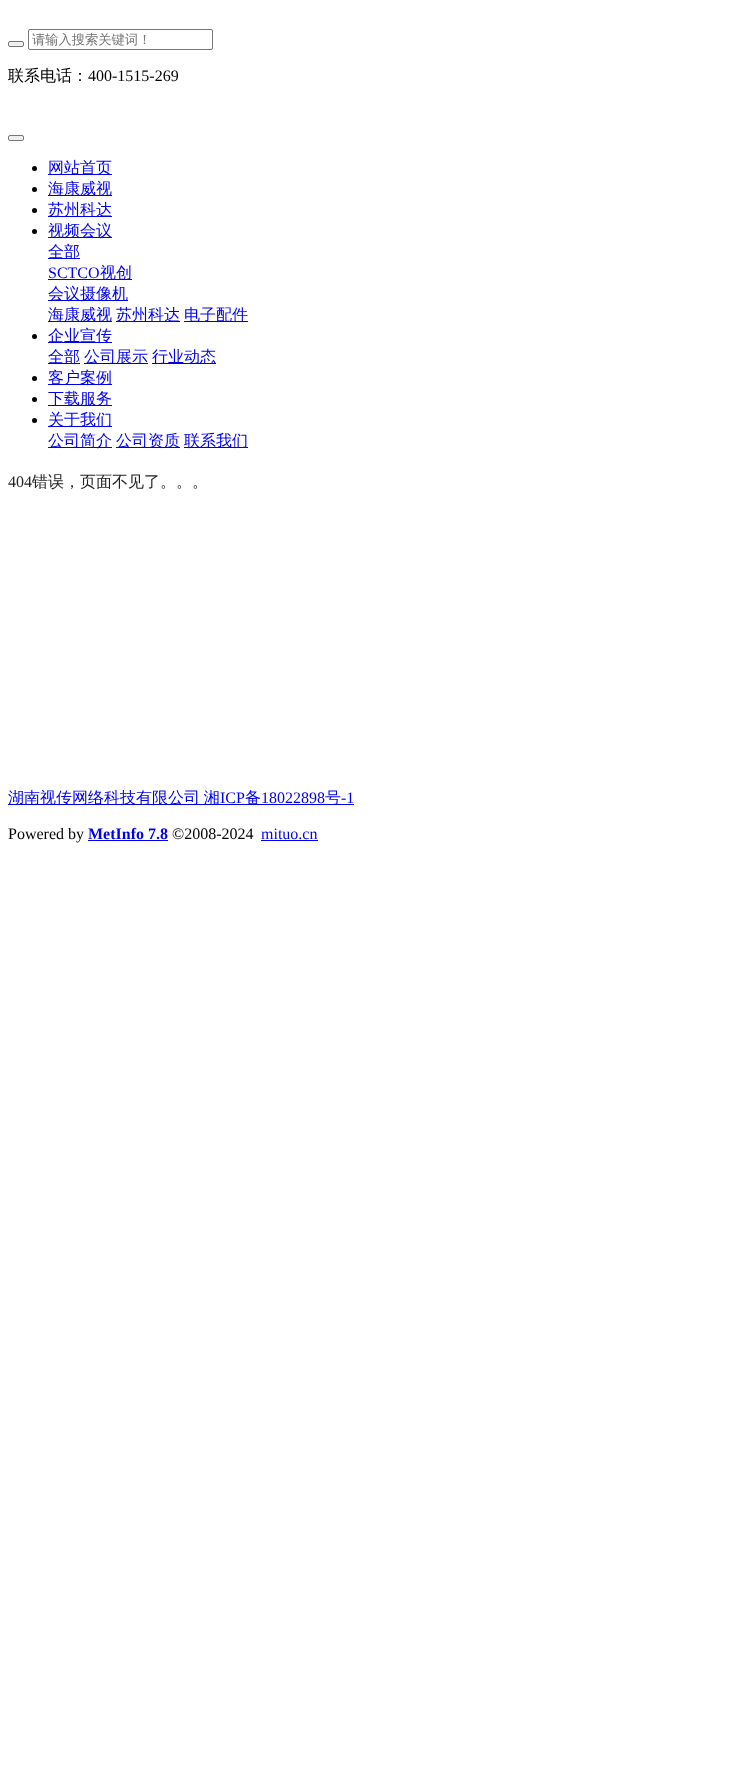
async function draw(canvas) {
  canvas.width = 735;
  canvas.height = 1785;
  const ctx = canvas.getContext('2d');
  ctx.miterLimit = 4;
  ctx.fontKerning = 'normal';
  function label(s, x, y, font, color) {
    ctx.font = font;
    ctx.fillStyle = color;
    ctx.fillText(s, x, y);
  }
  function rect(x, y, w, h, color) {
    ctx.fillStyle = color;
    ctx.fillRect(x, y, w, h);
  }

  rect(0, 0, 735, 1785, '#fff');
  ctx.fillStyle = '#efefef';
  ctx.beginPath();
  ctx.roundRect(8.5, 41.5, 15, 5, 1.5);
  ctx.fill();
  ctx.strokeStyle = '#767676';
  ctx.stroke();
  ctx.beginPath();
  ctx.roundRect(28.5, 29.5, 184, 20, 1.5);
  ctx.stroke();
  label('请输入搜索关键词！', 32, 44, '500 13.25px WenQuanYi Zen Hei', '#757575');
  label('联系电话：', 8, 81, '500 16px WenQuanYi Zen Hei', '#000');
  label('400-1515-269', 88, 81, '16px Liberation Serif', '#000');
  ctx.fillStyle = '#efefef';
  ctx.beginPath();
  ctx.roundRect(8.5, 135.5, 15, 5, 1.5);
  ctx.fill();
  ctx.stroke();
  ctx.fillStyle = '#000';
  ctx.beginPath();
  ctx.arc(34.5, 168.5, 2.5, 0, 2 * Math.PI);
  ctx.fill();
  rect(48, 174, 64, 1, '#00e');
  label('网站首页', 48, 173, '500 16px WenQuanYi Zen Hei', '#00e');
  ctx.fillStyle = '#000';
  ctx.beginPath();
  ctx.arc(34.5, 189.5, 2.5, 0, 2 * Math.PI);
  ctx.fill();
  rect(48, 195, 64, 1, '#00e');
  label('海康威视', 48, 194, '500 16px WenQuanYi Zen Hei', '#00e');
  ctx.fillStyle = '#000';
  ctx.beginPath();
  ctx.arc(34.5, 210.5, 2.5, 0, 2 * Math.PI);
  ctx.fill();
  rect(48, 216, 64, 1, '#00e');
  label('苏州科达', 48, 215, '500 16px WenQuanYi Zen Hei', '#00e');
  ctx.fillStyle = '#000';
  ctx.beginPath();
  ctx.arc(34.5, 231.5, 2.5, 0, 2 * Math.PI);
  ctx.fill();
  rect(48, 237, 64, 1, '#00e');
  label('视频会议', 48, 236, '500 16px WenQuanYi Zen Hei', '#00e');
  rect(48, 258, 32, 1, '#00e');
  label('全部', 48, 257, '500 16px WenQuanYi Zen Hei', '#00e');
  label('SCTCO', 48, 278, '16px Liberation Serif', '#00e');
  rect(48, 279, 84, 1, '#00e');
  label('视创', 100, 278, '500 16px WenQuanYi Zen Hei', '#00e');
  rect(48, 300, 80, 1, '#00e');
  label('会议摄像机', 48, 299, '500 16px WenQuanYi Zen Hei', '#00e');
  rect(48, 321, 64, 1, '#00e');
  label('海康威视', 48, 320, '500 16px WenQuanYi Zen Hei', '#00e');
  rect(116, 321, 64, 1, '#00e');
  label('苏州科达', 116, 320, '500 16px WenQuanYi Zen Hei', '#00e');
  rect(184, 321, 64, 1, '#00e');
  label('电子配件', 184, 320, '500 16px WenQuanYi Zen Hei', '#00e');
  ctx.fillStyle = '#000';
  ctx.beginPath();
  ctx.arc(34.5, 336.5, 2.5, 0, 2 * Math.PI);
  ctx.fill();
  rect(48, 342, 64, 1, '#00e');
  label('企业宣传', 48, 341, '500 16px WenQuanYi Zen Hei', '#00e');
  rect(48, 363, 32, 1, '#00e');
  label('全部', 48, 362, '500 16px WenQuanYi Zen Hei', '#00e');
  rect(84, 363, 64, 1, '#00e');
  label('公司展示', 84, 362, '500 16px WenQuanYi Zen Hei', '#00e');
  rect(152, 363, 64, 1, '#00e');
  label('行业动态', 152, 362, '500 16px WenQuanYi Zen Hei', '#00e');
  ctx.fillStyle = '#000';
  ctx.beginPath();
  ctx.arc(34.5, 378.5, 2.5, 0, 2 * Math.PI);
  ctx.fill();
  rect(48, 384, 64, 1, '#00e');
  label('客户案例', 48, 383, '500 16px WenQuanYi Zen Hei', '#00e');
  ctx.fillStyle = '#000';
  ctx.beginPath();
  ctx.arc(34.5, 399.5, 2.5, 0, 2 * Math.PI);
  ctx.fill();
  rect(48, 405, 64, 1, '#00e');
  label('下载服务', 48, 404, '500 16px WenQuanYi Zen Hei', '#00e');
  ctx.fillStyle = '#000';
  ctx.beginPath();
  ctx.arc(34.5, 420.5, 2.5, 0, 2 * Math.PI);
  ctx.fill();
  rect(48, 426, 64, 1, '#00e');
  label('关于我们', 48, 425, '500 16px WenQuanYi Zen Hei', '#00e');
  rect(48, 447, 64, 1, '#00e');
  label('公司简介', 48, 446, '500 16px WenQuanYi Zen Hei', '#00e');
  rect(116, 447, 64, 1, '#00e');
  label('公司资质', 116, 446, '500 16px WenQuanYi Zen Hei', '#00e');
  rect(184, 447, 64, 1, '#00e');
  label('联系我们', 184, 446, '500 16px WenQuanYi Zen Hei', '#00e');
  label('404', 8, 487, '16px Liberation Serif', '#222');
  label('错误，页面不见了。。。', 32, 487, '500 16px WenQuanYi Zen Hei', '#222');
  rect(8, 804, 346, 1, '#00e');
  ctx.wordSpacing = '-1px';
  label('湖南视传网络科技有限公司 湘', 8, 803, '500 16px WenQuanYi Zen Hei', '#00e');
  ctx.wordSpacing = '0px';
  label('ICP', 220, 803, '16px Liberation Serif', '#00e');
  label('备', 245, 803, '500 16px WenQuanYi Zen Hei', '#00e');
  label('18022898', 261, 803, '16px Liberation Serif', '#00e');
  label('号', 325, 803, '500 16px WenQuanYi Zen Hei', '#00e');
  label('-1', 341, 803, '16px Liberation Serif', '#00e');
  label('Powered by', 8, 839, '16px Liberation Serif', '#000');
  label('MetInfo 7.8', 88, 839, 'bold 16px Liberation Serif', '#00e');
  rect(88, 840, 80, 1, '#00e');
  label('©2008-2024', 172, 839, '16px Liberation Serif', '#000');
  label('mituo.cn', 261, 839, '16px Liberation Serif', '#00e');
  rect(261, 840, 57, 1, '#00e');
}

draw(document.querySelector('canvas'));
